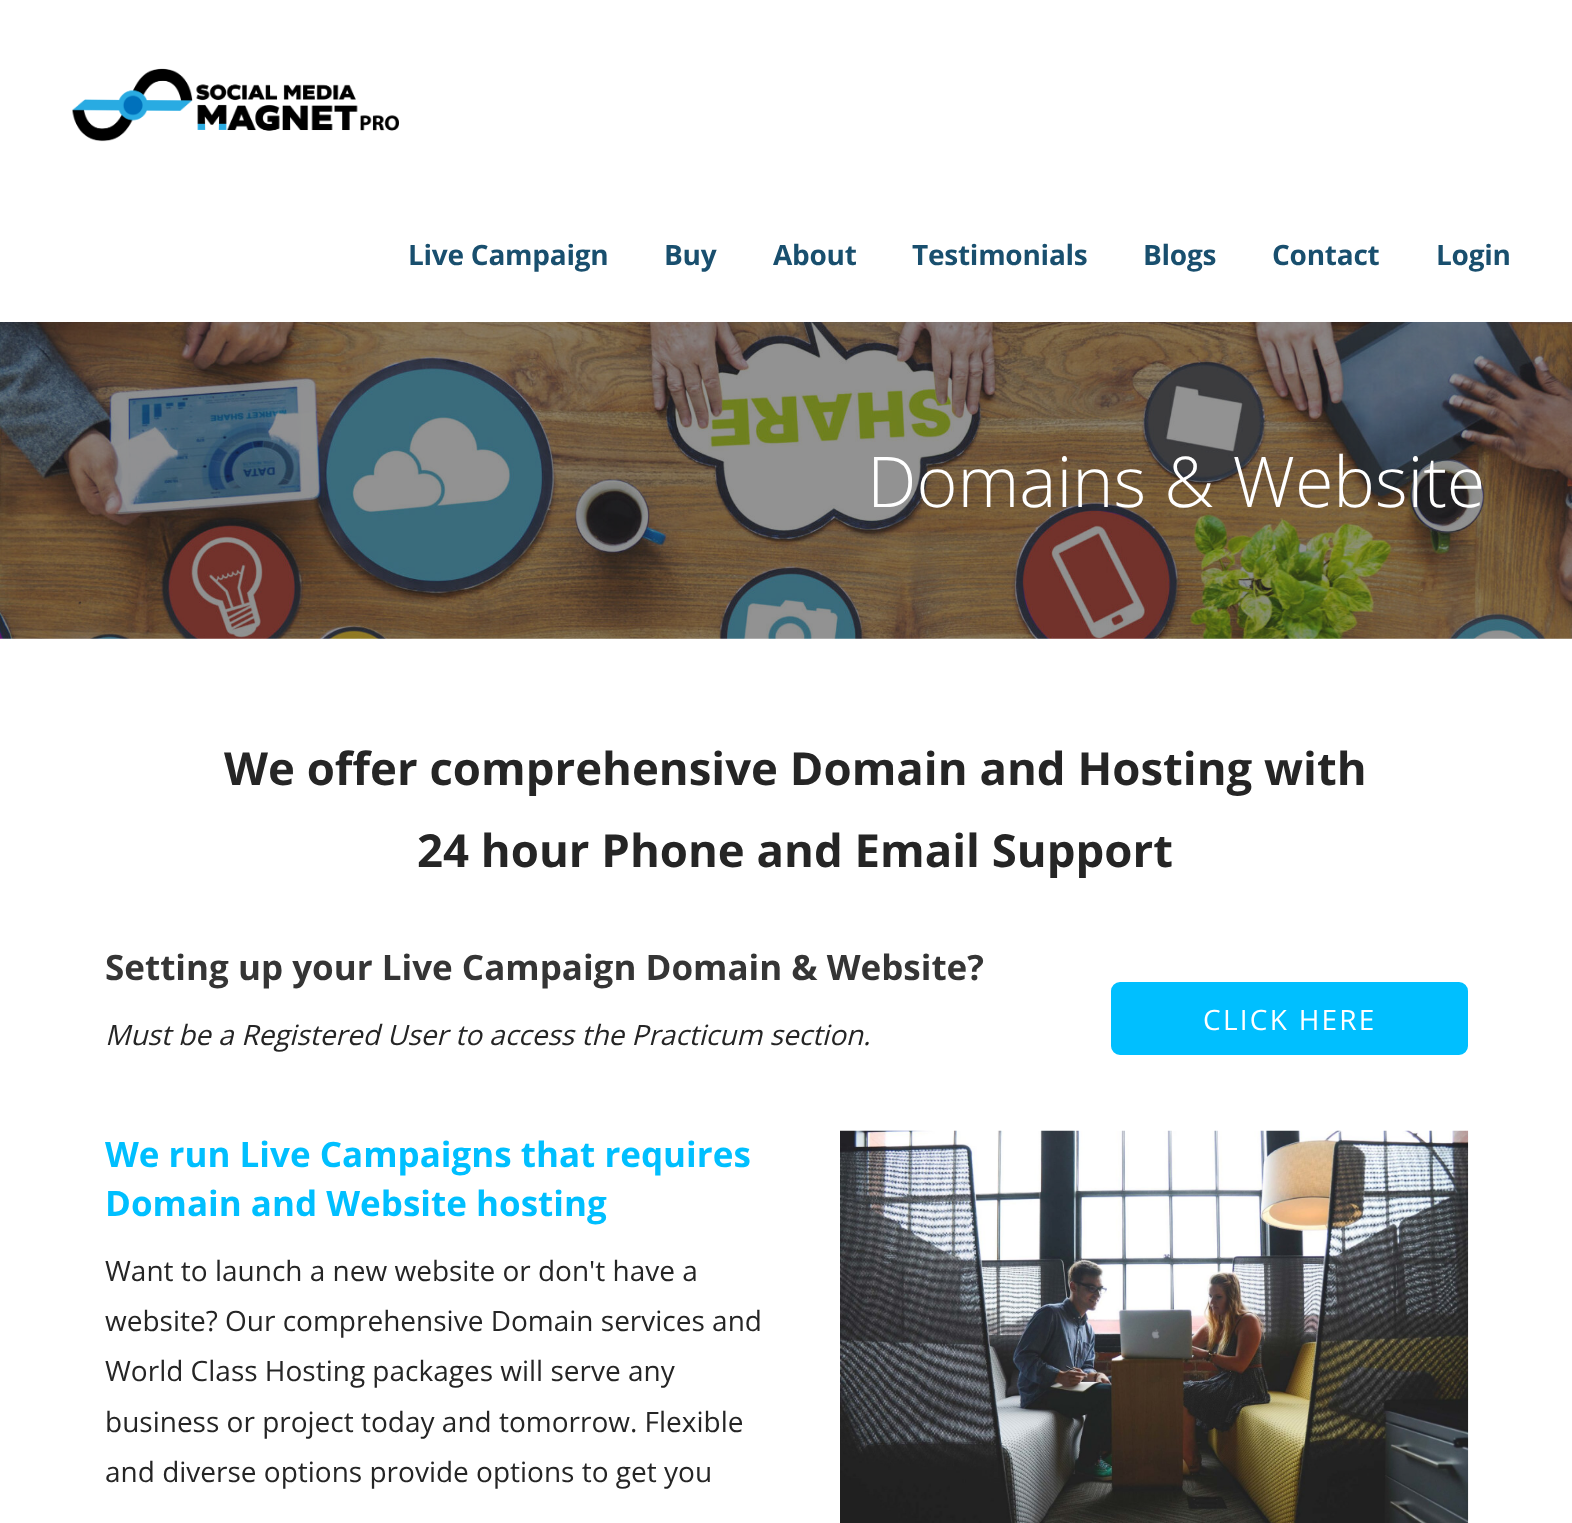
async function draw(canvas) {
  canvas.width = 1572;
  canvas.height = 1523;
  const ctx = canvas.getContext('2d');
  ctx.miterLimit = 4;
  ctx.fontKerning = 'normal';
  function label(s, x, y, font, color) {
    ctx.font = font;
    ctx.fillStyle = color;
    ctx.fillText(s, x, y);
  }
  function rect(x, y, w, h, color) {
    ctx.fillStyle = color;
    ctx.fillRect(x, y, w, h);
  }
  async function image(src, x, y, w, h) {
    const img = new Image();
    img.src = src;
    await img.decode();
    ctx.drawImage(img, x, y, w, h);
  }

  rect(0, 0, 1572, 1523, '#fff');
  await image('assets/img1.png', 72, 68, 327, 74);
  ctx.letterSpacing = '-0.25px';
  label('Live Campaign', 408, 265, 'bold 28px Open Sans', '#194f6e');
  label('Buy', 664, 265, 'bold 28px Open Sans', '#194f6e');
  label('About', 773, 265, 'bold 28px Open Sans', '#194f6e');
  label('Testimonials', 912, 265, 'bold 28px Open Sans', '#194f6e');
  label('Blogs', 1143, 265, 'bold 28px Open Sans', '#194f6e');
  label('Contact', 1272, 265, 'bold 28px Open Sans', '#194f6e');
  label('Login', 1436, 265, 'bold 28px Open Sans', '#194f6e');
  await image('assets/img2.png', 0, 322, 1572, 317);
  ctx.letterSpacing = '0px';
  label('Domains & Website', 867, 507, '300 70px Open Sans', '#fff');
  label('We offer comprehensive Domain and Hosting with', 224, 785, 'bold 45.5px Open Sans', '#252525');
  label('24 hour Phone and Email Support', 417, 867, 'bold 45.5px Open Sans', '#252525');
  label('Setting up your Live Campaign Domain & Website?', 105, 980, 'bold 35px Open Sans', '#353535');
  label('Must be a Registered User to access the Practicum section.', 105, 1045, 'italic 28px Open Sans', '#252525');
  ctx.fillStyle = '#00bfff';
  ctx.beginPath();
  ctx.roundRect(1112, 983, 355, 71, 8);
  ctx.fill();
  ctx.strokeStyle = '#00bfff';
  ctx.lineWidth = 2;
  ctx.stroke();
  ctx.letterSpacing = '2.25px';
  label('CLICK HERE', 1203, 1030, '28px Open Sans', '#fff');
  ctx.letterSpacing = '0px';
  label('We run Live Campaigns that requires', 105, 1167, 'bold 35px Open Sans', '#00bfff');
  label('Domain and Website hosting', 105, 1216, 'bold 35px Open Sans', '#00bfff');
  label('Want to launch a new website or don\'t have a', 105, 1281, '28px Open Sans', '#252525');
  label('website? Our comprehensive Domain services and', 105, 1331, '28px Open Sans', '#252525');
  label('World Class Hosting packages will serve any', 105, 1381, '28px Open Sans', '#252525');
  label('business or project today and tomorrow. Flexible', 105, 1432, '28px Open Sans', '#252525');
  label('and diverse options provide options to get you', 105, 1482, '28px Open Sans', '#252525');
  await image('assets/img3.png', 840, 1130, 629, 393);
}

draw(document.querySelector('canvas'));
